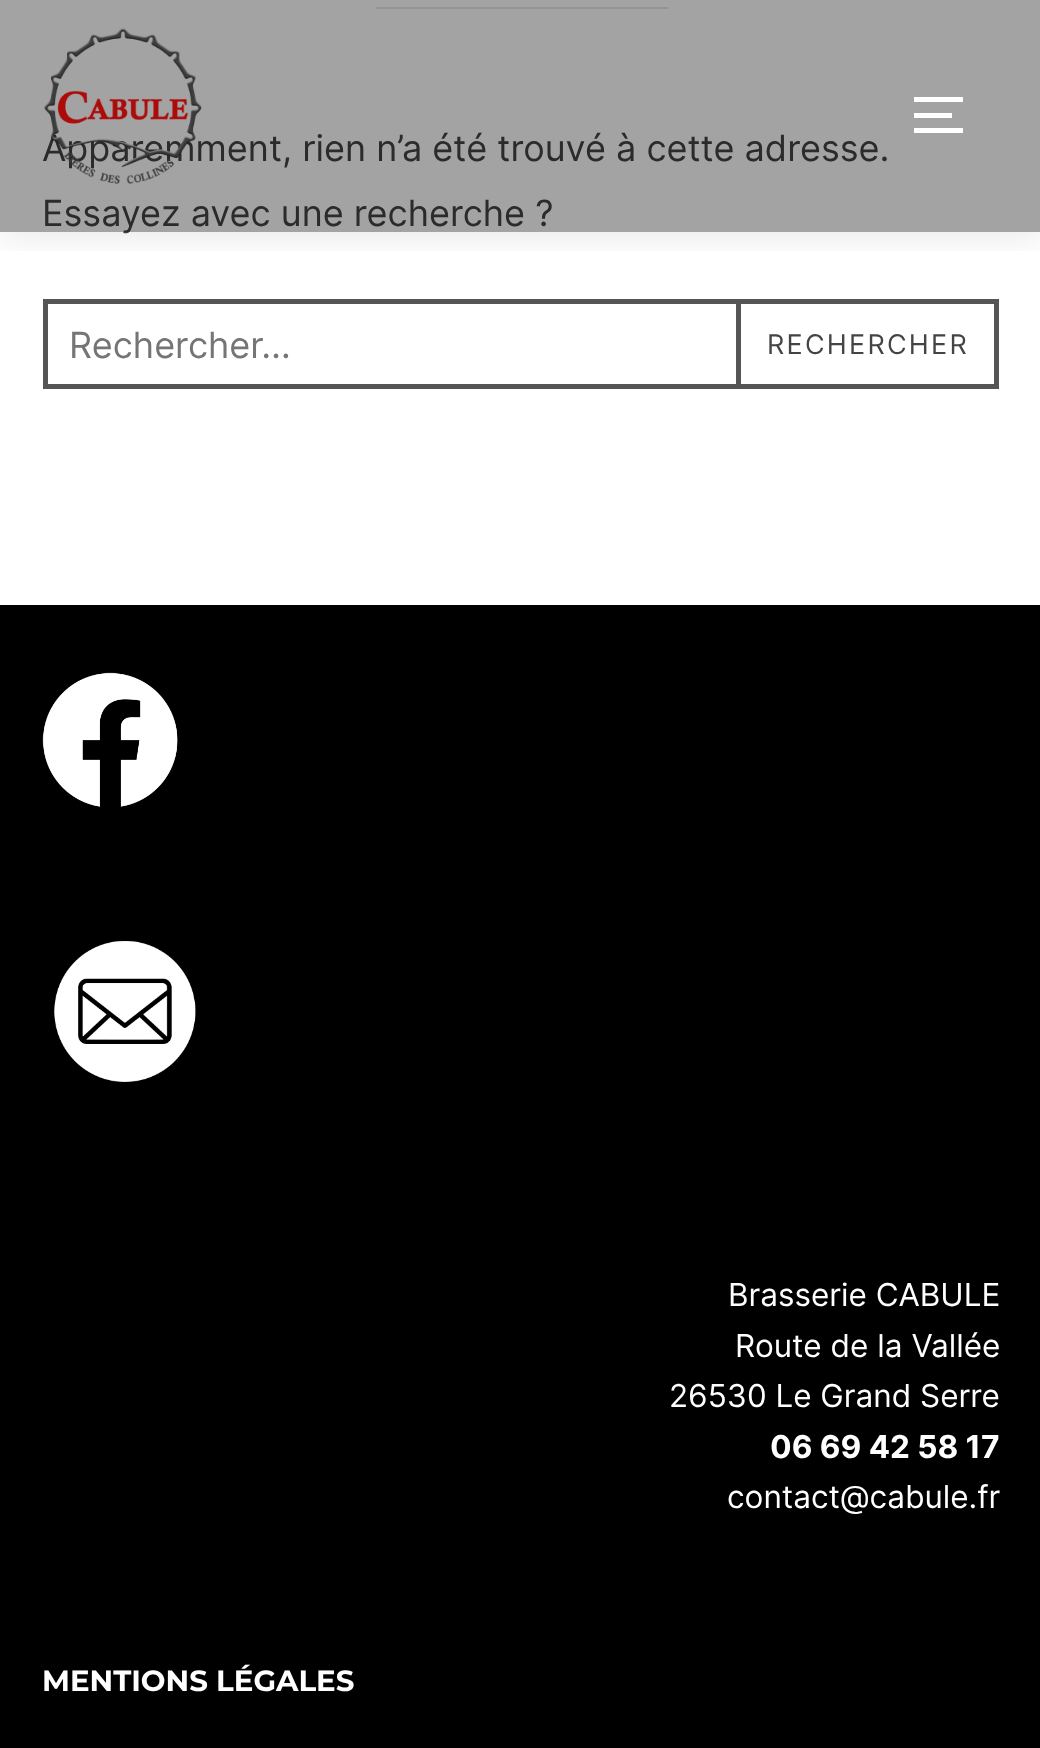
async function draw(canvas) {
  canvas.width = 1040;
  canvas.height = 1748;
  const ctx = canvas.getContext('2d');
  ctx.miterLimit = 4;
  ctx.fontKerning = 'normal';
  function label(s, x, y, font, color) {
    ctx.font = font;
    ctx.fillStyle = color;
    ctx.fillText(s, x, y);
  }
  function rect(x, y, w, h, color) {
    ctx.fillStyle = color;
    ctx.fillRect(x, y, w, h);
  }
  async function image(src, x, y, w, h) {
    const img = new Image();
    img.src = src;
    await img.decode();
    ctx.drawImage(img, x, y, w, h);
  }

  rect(0, 0, 1040, 1748, '#fff');
  rect(376, 7, 292, 2, '#e6e6e6');
  ctx.save();
  ctx.beginPath();
  ctx.rect(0, 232, 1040, 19);
  ctx.clip();
  ctx.fillStyle = '#0000001a';
  ctx.filter = 'blur(20px)';
  ctx.beginPath();
  ctx.rect(-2, -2, 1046, 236);
  ctx.fill();
  ctx.filter = 'none';
  ctx.restore();
  label('Apparemment, rien n’a été trouvé à cette adresse.', 42, 161, '36px Inter', '#444');
  label('Essayez avec une recherche ?', 42, 226, '36px Inter', '#444');
  rect(0, 0, 1040, 232, '#0000005c');
  await image('assets/img1.png', 44, 28, 158, 156);
  rect(914, 97, 49, 5, '#fff');
  rect(914, 113, 38, 5, '#fff');
  rect(914, 128, 49, 5, '#fff');
  ctx.strokeStyle = '#565555';
  ctx.lineWidth = 5;
  ctx.strokeRect(45.5, 301.5, 951, 85);
  label('Rechercher…', 69, 358, '36px Inter', '#757575');
  ctx.strokeRect(738.5, 301.5, 258, 85);
  ctx.letterSpacing = '2.25px';
  label('RECHERCHER', 767, 354, '27px Inter', '#444');
  rect(0, 605, 1040, 1143, '#000');
  await image('assets/img2.png', 42, 672, 136, 135);
  await image('assets/img3.png', 54, 941, 142, 141);
  ctx.letterSpacing = '0px';
  label('Brasserie CABULE', 728, 1306, '31.5px Inter', '#fff');
  label('Route de la Vallée', 735, 1357, '31.5px Inter', '#fff');
  label('26530 Le Grand Serre', 669, 1407, '31.5px Inter', '#fff');
  label('06 69 42 58 17', 770, 1458, 'bold 31.5px Inter', '#fff');
  label('contact@cabule.fr', 727, 1508, '31.5px Inter', '#fff');
  label('MENTIONS LÉGALES', 42, 1691, 'bold 29.25px Montserrat', '#fff');
}

draw(document.querySelector('canvas'));
